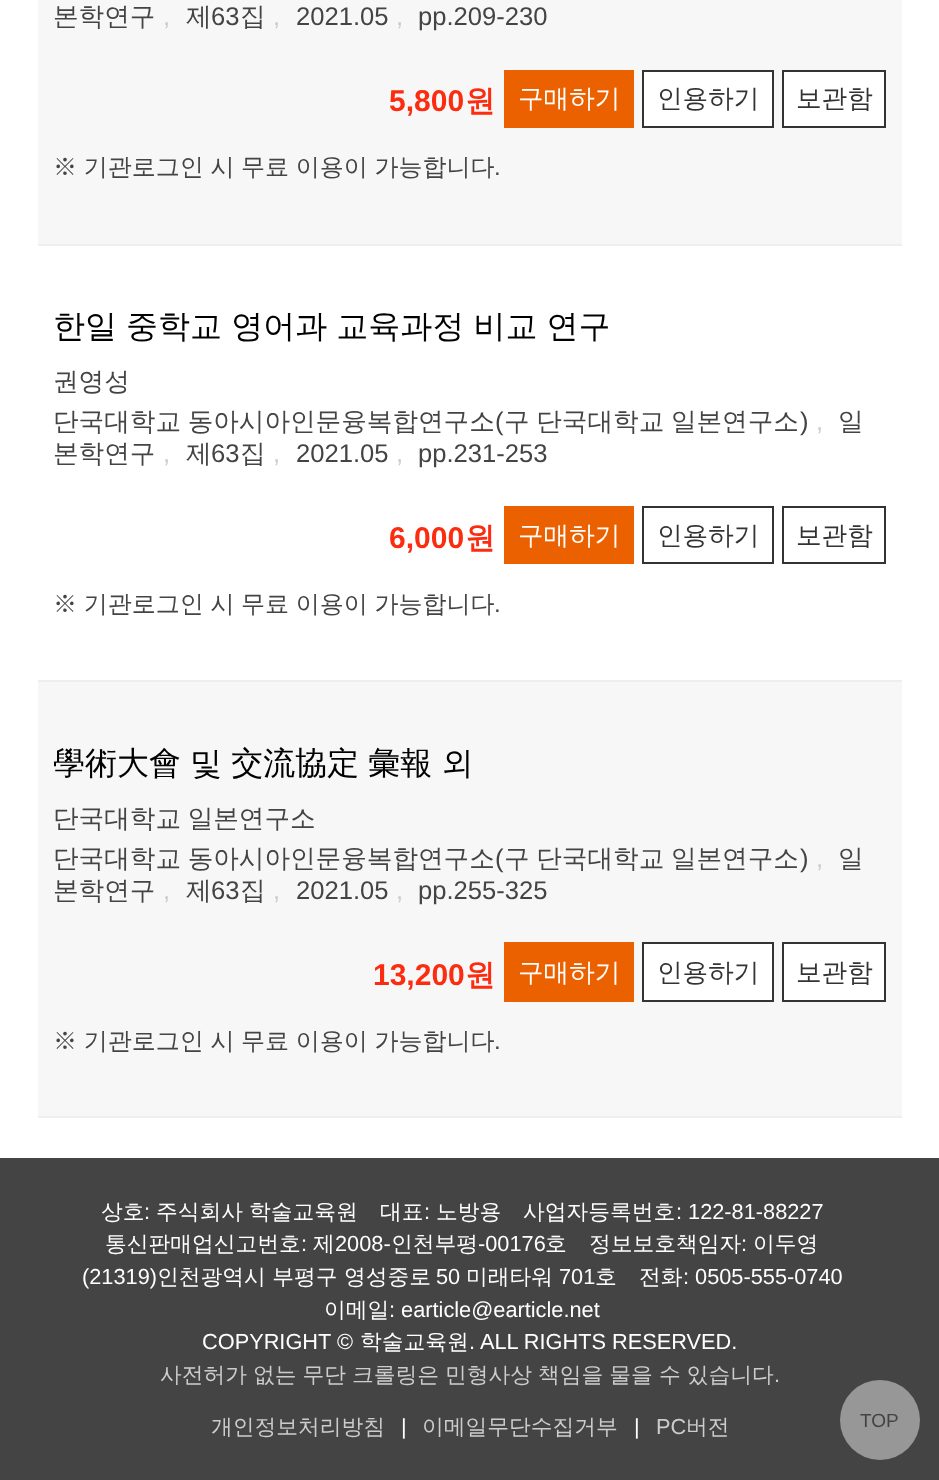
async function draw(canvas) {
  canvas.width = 939;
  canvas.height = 1480;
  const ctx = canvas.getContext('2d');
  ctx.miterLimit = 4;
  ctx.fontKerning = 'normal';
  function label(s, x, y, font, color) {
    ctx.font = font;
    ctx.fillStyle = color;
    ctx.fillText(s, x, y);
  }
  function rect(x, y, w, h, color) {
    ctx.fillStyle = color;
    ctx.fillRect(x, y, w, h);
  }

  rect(0, 0, 939, 1480, '#fff');
  rect(38, 0, 864, 244, '#f7f7f7');
  rect(38, 244, 864, 2, '#eee');
  label('본학연구', 53, 25, '500 25.6px WenQuanYi Zen Hei', '#444');
  label(',', 163, 25, '25.6px Liberation Sans', '#ccc');
  label('제', 186, 25, '500 25.6px WenQuanYi Zen Hei', '#444');
  label('63', 211, 25, '25.6px Liberation Sans', '#444');
  label('집', 240, 25, '500 25.6px WenQuanYi Zen Hei', '#444');
  label(',', 273, 25, '25.6px Liberation Sans', '#ccc');
  label('2021.05', 296, 25, '25.6px Liberation Sans', '#444');
  label(',', 396, 25, '25.6px Liberation Sans', '#ccc');
  label('pp.209-230', 418, 25, '25.6px Liberation Sans', '#444');
  label('5,800', 389, 111, 'bold 30px Liberation Sans', '#fb2c0f');
  label('원', 465, 111, 'bold 30px WenQuanYi Zen Hei', '#fb2c0f');
  rect(504, 70, 130, 58, '#eb6100');
  label('구매하기', 518, 107, '500 25.6px WenQuanYi Zen Hei', '#fff');
  ctx.beginPath();
  ctx.rect(643, 71, 130, 56);
  ctx.fill();
  ctx.strokeStyle = '#333';
  ctx.lineWidth = 2;
  ctx.stroke();
  label('인용하기', 657, 107, '500 25.6px WenQuanYi Zen Hei', '#333');
  ctx.fillStyle = '#fff';
  ctx.beginPath();
  ctx.rect(783, 71, 102, 56);
  ctx.fill();
  ctx.stroke();
  label('보관함', 796, 107, '500 25.6px WenQuanYi Zen Hei', '#333');
  ctx.wordSpacing = '-0.5px';
  label('※ 기관로그인 시 무료 이용이 가능합니다', 53, 175, '500 24px WenQuanYi Zen Hei', '#444');
  ctx.wordSpacing = '0px';
  label('.', 494, 175, '24px Liberation Sans', '#444');
  rect(38, 680, 864, 2, '#eee');
  ctx.wordSpacing = '-0.5px';
  label('한일 중학교 영어과 교육과정 비교 연구', 53, 337, '500 32px WenQuanYi Zen Hei', '#000');
  ctx.wordSpacing = '0px';
  label('권영성', 53, 390, '500 25.6px WenQuanYi Zen Hei', '#444');
  ctx.wordSpacing = '-1px';
  label('단국대학교 동아시아인문융복합연구소', 53, 430, '500 25.6px WenQuanYi Zen Hei', '#444');
  ctx.wordSpacing = '0px';
  label('(', 495, 430, '25.6px Liberation Sans', '#444');
  ctx.wordSpacing = '-1px';
  label('구 단국대학교 일본연구소', 504, 430, '500 25.6px WenQuanYi Zen Hei', '#444');
  ctx.wordSpacing = '0px';
  label(')', 800, 430, '25.6px Liberation Sans', '#444');
  label(',', 816, 430, '25.6px Liberation Sans', '#ccc');
  label('일', 838, 430, '500 25.6px WenQuanYi Zen Hei', '#444');
  label('본학연구', 53, 462, '500 25.6px WenQuanYi Zen Hei', '#444');
  label(',', 163, 462, '25.6px Liberation Sans', '#ccc');
  label('제', 186, 462, '500 25.6px WenQuanYi Zen Hei', '#444');
  label('63', 211, 462, '25.6px Liberation Sans', '#444');
  label('집', 240, 462, '500 25.6px WenQuanYi Zen Hei', '#444');
  label(',', 273, 462, '25.6px Liberation Sans', '#ccc');
  label('2021.05', 296, 462, '25.6px Liberation Sans', '#444');
  label(',', 396, 462, '25.6px Liberation Sans', '#ccc');
  label('pp.231-253', 418, 462, '25.6px Liberation Sans', '#444');
  label('6,000', 389, 548, 'bold 30px Liberation Sans', '#fb2c0f');
  label('원', 465, 548, 'bold 30px WenQuanYi Zen Hei', '#fb2c0f');
  rect(504, 506, 130, 58, '#eb6100');
  label('구매하기', 518, 544, '500 25.6px WenQuanYi Zen Hei', '#fff');
  ctx.strokeRect(643, 507, 130, 56);
  label('인용하기', 657, 544, '500 25.6px WenQuanYi Zen Hei', '#333');
  ctx.strokeRect(783, 507, 102, 56);
  label('보관함', 796, 544, '500 25.6px WenQuanYi Zen Hei', '#333');
  ctx.wordSpacing = '-0.5px';
  label('※ 기관로그인 시 무료 이용이 가능합니다', 53, 612, '500 24px WenQuanYi Zen Hei', '#444');
  ctx.wordSpacing = '0px';
  label('.', 494, 612, '24px Liberation Sans', '#444');
  rect(38, 682, 864, 434, '#f7f7f7');
  rect(38, 1116, 864, 2, '#eee');
  ctx.wordSpacing = '-0.5px';
  label('學術大會 및 交流協定 彙報 외', 53, 774, '500 32px WenQuanYi Zen Hei', '#000');
  ctx.wordSpacing = '-1px';
  label('단국대학교 일본연구소', 53, 827, '500 25.6px WenQuanYi Zen Hei', '#444');
  label('단국대학교 동아시아인문융복합연구소', 53, 867, '500 25.6px WenQuanYi Zen Hei', '#444');
  ctx.wordSpacing = '0px';
  label('(', 495, 867, '25.6px Liberation Sans', '#444');
  ctx.wordSpacing = '-1px';
  label('구 단국대학교 일본연구소', 504, 867, '500 25.6px WenQuanYi Zen Hei', '#444');
  ctx.wordSpacing = '0px';
  label(')', 800, 867, '25.6px Liberation Sans', '#444');
  label(',', 816, 867, '25.6px Liberation Sans', '#ccc');
  label('일', 838, 867, '500 25.6px WenQuanYi Zen Hei', '#444');
  label('본학연구', 53, 899, '500 25.6px WenQuanYi Zen Hei', '#444');
  label(',', 163, 899, '25.6px Liberation Sans', '#ccc');
  label('제', 186, 899, '500 25.6px WenQuanYi Zen Hei', '#444');
  label('63', 211, 899, '25.6px Liberation Sans', '#444');
  label('집', 240, 899, '500 25.6px WenQuanYi Zen Hei', '#444');
  label(',', 273, 899, '25.6px Liberation Sans', '#ccc');
  label('2021.05', 296, 899, '25.6px Liberation Sans', '#444');
  label(',', 396, 899, '25.6px Liberation Sans', '#ccc');
  label('pp.255-325', 418, 899, '25.6px Liberation Sans', '#444');
  label('13,200', 373, 985, 'bold 30px Liberation Sans', '#fb2c0f');
  label('원', 465, 985, 'bold 30px WenQuanYi Zen Hei', '#fb2c0f');
  rect(504, 942, 130, 60, '#eb6100');
  label('구매하기', 518, 981, '500 25.6px WenQuanYi Zen Hei', '#fff');
  ctx.beginPath();
  ctx.rect(643, 943, 130, 58);
  ctx.fill();
  ctx.stroke();
  label('인용하기', 657, 981, '500 25.6px WenQuanYi Zen Hei', '#333');
  ctx.fillStyle = '#fff';
  ctx.beginPath();
  ctx.rect(783, 943, 102, 58);
  ctx.fill();
  ctx.stroke();
  label('보관함', 796, 981, '500 25.6px WenQuanYi Zen Hei', '#333');
  ctx.wordSpacing = '-0.5px';
  label('※ 기관로그인 시 무료 이용이 가능합니다', 53, 1049, '500 24px WenQuanYi Zen Hei', '#444');
  ctx.wordSpacing = '0px';
  label('.', 494, 1049, '24px Liberation Sans', '#444');
  rect(0, 1158, 939, 322, '#444');
  label('상호', 101, 1219, '500 21.75px WenQuanYi Zen Hei', '#fff');
  label(':', 144, 1219, '21.75px Liberation Sans', '#fff');
  ctx.wordSpacing = '-0.5px';
  label('주식회사 학술교육원', 156, 1219, '500 21.75px WenQuanYi Zen Hei', '#fff');
  ctx.wordSpacing = '0px';
  label('대표', 380, 1219, '500 21.75px WenQuanYi Zen Hei', '#fff');
  label(':', 424, 1219, '21.75px Liberation Sans', '#fff');
  label('노방용', 436, 1219, '500 21.75px WenQuanYi Zen Hei', '#fff');
  label('사업자등록번호', 523, 1219, '500 21.75px WenQuanYi Zen Hei', '#fff');
  label(': 122-81-88227', 676, 1219, '21.75px Liberation Sans', '#fff');
  label('통신판매업신고번호', 105, 1251, '500 21.75px WenQuanYi Zen Hei', '#fff');
  label(':', 301, 1251, '21.75px Liberation Sans', '#fff');
  label('제', 313, 1251, '500 21.75px WenQuanYi Zen Hei', '#fff');
  label('2008-', 335, 1251, '21.75px Liberation Sans', '#fff');
  label('인천부평', 391, 1251, '500 21.75px WenQuanYi Zen Hei', '#fff');
  label('-00176', 478, 1251, '21.75px Liberation Sans', '#fff');
  label('호', 545, 1251, '500 21.75px WenQuanYi Zen Hei', '#fff');
  label('정보보호책임자', 589, 1251, '500 21.75px WenQuanYi Zen Hei', '#fff');
  label(':', 741, 1251, '21.75px Liberation Sans', '#fff');
  label('이두영', 753, 1251, '500 21.75px WenQuanYi Zen Hei', '#fff');
  label('(21319)', 82, 1284, '21.75px Liberation Sans', '#fff');
  label('인천광역시 부평구 영성중로', 157, 1284, '500 21.75px WenQuanYi Zen Hei', '#fff');
  label('50', 436, 1284, '21.75px Liberation Sans', '#fff');
  label('미래타워', 466, 1284, '500 21.75px WenQuanYi Zen Hei', '#fff');
  label('701', 559, 1284, '21.75px Liberation Sans', '#fff');
  label('호', 595, 1284, '500 21.75px WenQuanYi Zen Hei', '#fff');
  label('전화', 639, 1284, '500 21.75px WenQuanYi Zen Hei', '#fff');
  label(': 0505-555-0740', 683, 1284, '21.75px Liberation Sans', '#fff');
  label('이메일', 324, 1317, '500 21.75px WenQuanYi Zen Hei', '#fff');
  label(': earticle@earticle.net', 389, 1317, '21.75px Liberation Sans', '#fff');
  label('COPYRIGHT ©', 202, 1349, '21.75px Liberation Sans', '#fff');
  label('학술교육원', 360, 1349, '500 21.75px WenQuanYi Zen Hei', '#fff');
  label('. ALL RIGHTS RESERVED.', 469, 1349, '21.75px Liberation Sans', '#fff');
  ctx.wordSpacing = '-0.5px';
  label('사전허가 없는 무단 크롤링은 민형사상 책임을 물을 수 있습니다', 160, 1382, '500 21.75px WenQuanYi Zen Hei', '#ccc');
  ctx.wordSpacing = '0px';
  label('.', 774, 1382, '21.75px Liberation Sans', '#ccc');
  label('개인정보처리방침', 211, 1434, '500 21.75px WenQuanYi Zen Hei', '#ccc');
  label('|', 401, 1434, '21.75px Liberation Sans', '#fff');
  label('이메일무단수집거부', 422, 1434, '500 21.75px WenQuanYi Zen Hei', '#ccc');
  label('|', 634, 1434, '21.75px Liberation Sans', '#fff');
  label('PC', 656, 1434, '21.75px Liberation Sans', '#ccc');
  label('버전', 686, 1434, '500 21.75px WenQuanYi Zen Hei', '#ccc');
  ctx.fillStyle = '#979797';
  ctx.beginPath();
  ctx.arc(880, 1420, 40, 0, 2 * Math.PI);
  ctx.fill();
  label('TOP', 860, 1427, '19px Liberation Sans', '#444');
}

draw(document.querySelector('canvas'));
